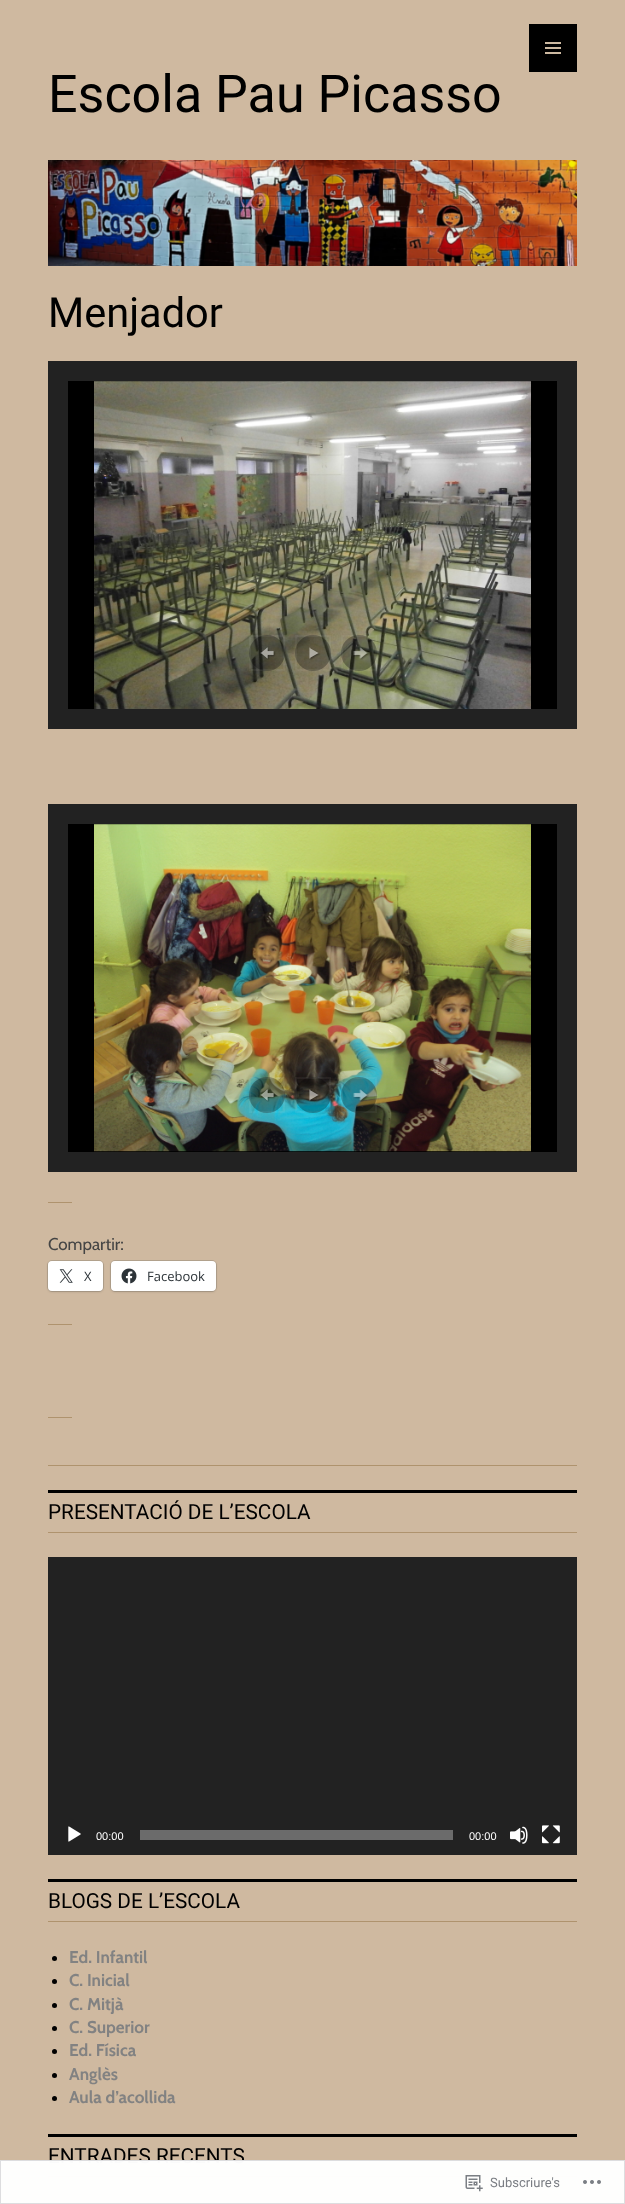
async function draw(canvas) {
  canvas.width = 625;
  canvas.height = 2204;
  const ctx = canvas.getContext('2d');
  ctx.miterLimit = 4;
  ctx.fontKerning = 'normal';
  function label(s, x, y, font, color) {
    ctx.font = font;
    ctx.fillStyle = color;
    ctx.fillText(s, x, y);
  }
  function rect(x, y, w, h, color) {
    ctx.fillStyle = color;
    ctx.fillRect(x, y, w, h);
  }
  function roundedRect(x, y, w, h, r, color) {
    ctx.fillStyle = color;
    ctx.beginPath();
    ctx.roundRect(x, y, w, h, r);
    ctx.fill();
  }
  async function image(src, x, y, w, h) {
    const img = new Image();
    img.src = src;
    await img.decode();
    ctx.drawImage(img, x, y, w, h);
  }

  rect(0, 0, 625, 2204, '#cfb9a0');
  rect(529, 24, 48, 48, '#000');
  await image('assets/img1.png', 545, 42, 16, 12);
  label('Escola Pau Picasso', 48, 112, '52px Roboto', '#000');
  await image('assets/img2.png', 48, 160, 529, 106);
  rect(48, 1465, 529, 1, '#af936e');
  label('Menjador', 48, 327, '41.5px Roboto', '#000');
  ctx.beginPath();
  ctx.rect(58, 371, 509, 348);
  ctx.strokeStyle = '#222';
  ctx.lineWidth = 20;
  ctx.stroke();
  rect(68, 381, 489, 328, '#000');
  await image('assets/img3.png', 94, 381, 437, 328);
  ctx.fillStyle = '#0000004d';
  ctx.beginPath();
  ctx.arc(267, 653, 18, 0, 2 * Math.PI);
  ctx.fill();
  await image('assets/img4.png', 260, 647, 16, 13);
  ctx.strokeStyle = '#ffffff0d';
  ctx.lineWidth = 2;
  ctx.strokeRect(250, 636, 34, 34);
  ctx.beginPath();
  ctx.arc(313, 653, 18, 0, 2 * Math.PI);
  ctx.fill();
  await image('assets/img5.png', 309, 647, 11, 13);
  ctx.strokeRect(296, 636, 34, 34);
  ctx.beginPath();
  ctx.arc(359, 653, 18, 0, 2 * Math.PI);
  ctx.fill();
  await image('assets/img6.png', 353, 647, 16, 13);
  ctx.strokeRect(342, 636, 34, 34);
  ctx.beginPath();
  ctx.rect(58, 814, 509, 348);
  ctx.strokeStyle = '#222';
  ctx.lineWidth = 20;
  ctx.stroke();
  rect(68, 824, 489, 328, '#000');
  await image('assets/img7.png', 94, 824, 437, 328);
  ctx.fillStyle = '#0000004d';
  ctx.beginPath();
  ctx.arc(267, 1095, 18, 0, 2 * Math.PI);
  ctx.fill();
  await image('assets/img8.png', 260, 1089, 16, 13);
  ctx.strokeStyle = '#ffffff0d';
  ctx.lineWidth = 2;
  ctx.strokeRect(250, 1078, 34, 34);
  ctx.beginPath();
  ctx.arc(313, 1095, 18, 0, 2 * Math.PI);
  ctx.fill();
  await image('assets/img9.png', 309, 1089, 11, 13);
  ctx.strokeRect(296, 1078, 34, 34);
  ctx.beginPath();
  ctx.arc(359, 1095, 18, 0, 2 * Math.PI);
  ctx.fill();
  await image('assets/img10.png', 353, 1089, 16, 13);
  ctx.strokeRect(342, 1078, 34, 34);
  rect(48, 1202, 24, 1, '#af936e');
  label('Compartir:', 48, 1250, '17px Cabin', '#444');
  ctx.beginPath();
  ctx.roundRect(47.5, 1260.5, 56, 31, 4.5);
  ctx.strokeStyle = '#b4a38e';
  ctx.lineWidth = 1;
  ctx.stroke();
  ctx.fillStyle = '#0000001f';
  ctx.filter = 'blur(1px)';
  ctx.beginPath();
  ctx.roundRect(48, 1262, 55, 30, 4);
  ctx.fill();
  ctx.filter = 'none';
  roundedRect(48, 1261, 55, 30, 4, '#fff');
  await image('assets/img11.png', 59, 1269, 14, 14);
  label('X', 84, 1281, '13px Open Sans', '#2c3338');
  ctx.beginPath();
  ctx.roundRect(110.5, 1260.5, 106, 31, 4.5);
  ctx.stroke();
  ctx.fillStyle = '#0000001f';
  ctx.filter = 'blur(1px)';
  ctx.beginPath();
  ctx.roundRect(111, 1262, 105, 30, 4);
  ctx.fill();
  ctx.filter = 'none';
  roundedRect(111, 1261, 105, 30, 4, '#fff');
  await image('assets/img12.png', 121, 1268, 16, 16);
  label('Facebook', 147, 1281, '13px Open Sans', '#2c3338');
  rect(48, 1324, 24, 1, '#af936e');
  rect(48, 1417, 24, 1, '#af936e');
  rect(48, 1490, 529, 3, '#000');
  rect(48, 1532, 529, 1, '#af936e');
  label('PRESENTACIÓ DE L’ESCOLA', 48, 1519, '20.75px Roboto', '#000');
  rect(48, 1557, 529, 298, '#222');
  await image('assets/img13.png', 68, 1826, 13, 16);
  label('00:00', 96, 1840, '11px Liberation Sans', '#fff');
  rect(140, 1830, 313, 10, '#6b6b6b');
  label('00:00', 469, 1840, '11px Liberation Sans', '#fff');
  await image('assets/img14.png', 510, 1826, 18, 18);
  await image('assets/img15.png', 542, 1825, 18, 19);
  rect(48, 1879, 529, 3, '#000');
  rect(48, 1921, 529, 1, '#af936e');
  label('BLOGS DE L’ESCOLA', 48, 1908, '20.75px Roboto', '#000');
  ctx.beginPath();
  ctx.arc(54.5, 1958.5, 2.5, 0, 2 * Math.PI);
  ctx.fill();
  label('Ed. Infantil', 69, 1963, 'bold 17px Cabin', '#828282');
  ctx.fillStyle = '#000';
  ctx.beginPath();
  ctx.arc(54.5, 1981.5, 2.5, 0, 2 * Math.PI);
  ctx.fill();
  label('C. Inicial', 69, 1986, 'bold 17px Cabin', '#828282');
  ctx.fillStyle = '#000';
  ctx.beginPath();
  ctx.arc(54.5, 2005.5, 2.5, 0, 2 * Math.PI);
  ctx.fill();
  label('C. Mitjà', 69, 2010, 'bold 17px Cabin', '#828282');
  ctx.fillStyle = '#000';
  ctx.beginPath();
  ctx.arc(54.5, 2028.5, 2.5, 0, 2 * Math.PI);
  ctx.fill();
  label('C. Superior', 69, 2033, 'bold 17px Cabin', '#828282');
  ctx.fillStyle = '#000';
  ctx.beginPath();
  ctx.arc(54.5, 2051.5, 2.5, 0, 2 * Math.PI);
  ctx.fill();
  label('Ed. Física', 69, 2056, 'bold 17px Cabin', '#828282');
  ctx.fillStyle = '#000';
  ctx.beginPath();
  ctx.arc(54.5, 2075.5, 2.5, 0, 2 * Math.PI);
  ctx.fill();
  label('Anglès', 69, 2080, 'bold 17px Cabin', '#828282');
  ctx.fillStyle = '#000';
  ctx.beginPath();
  ctx.arc(54.5, 2098.5, 2.5, 0, 2 * Math.PI);
  ctx.fill();
  label('Aula d’acollida', 69, 2103, 'bold 17px Cabin', '#828282');
  rect(48, 2134, 529, 3, '#000');
  rect(48, 2176, 529, 1, '#af936e');
  label('ENTRADES RECENTS', 48, 2163, '20.75px Roboto', '#000');
  rect(0, 2160, 625, 44, '#fffffffa');
  ctx.strokeStyle = '#dcdcdefa';
  ctx.strokeRect(0.5, 2160.5, 624, 43);
  await image('assets/img16.png', 465, 2175, 18, 17);
  label('Subscriure\'s', 490, 2187, '13px Roboto', '#7a7d83');
  await image('assets/img17.png', 583, 2180, 18, 4);
}

draw(document.querySelector('canvas'));
